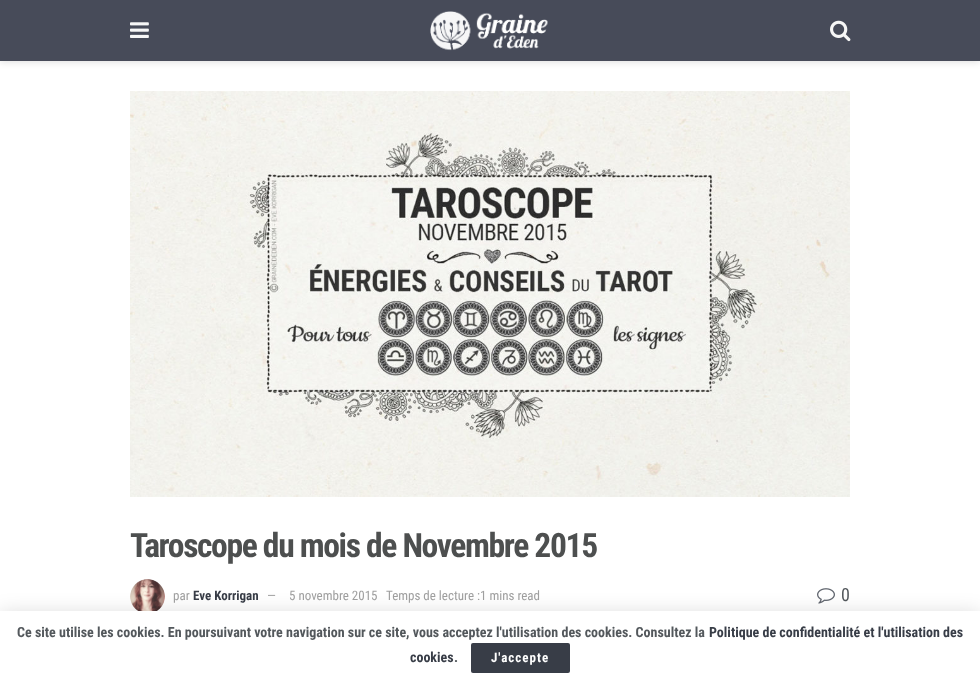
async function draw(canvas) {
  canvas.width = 980;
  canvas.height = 683;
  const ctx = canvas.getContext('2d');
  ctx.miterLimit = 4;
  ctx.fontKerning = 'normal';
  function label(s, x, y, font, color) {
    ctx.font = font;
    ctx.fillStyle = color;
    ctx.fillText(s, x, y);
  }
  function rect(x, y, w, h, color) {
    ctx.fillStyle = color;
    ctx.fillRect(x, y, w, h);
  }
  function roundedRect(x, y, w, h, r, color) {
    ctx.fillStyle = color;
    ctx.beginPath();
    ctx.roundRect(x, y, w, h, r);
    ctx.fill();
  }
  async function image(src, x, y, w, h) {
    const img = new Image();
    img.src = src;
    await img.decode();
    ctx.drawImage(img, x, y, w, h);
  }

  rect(0, 0, 980, 683, '#fff');
  ctx.fillStyle = '#0000001a';
  ctx.filter = 'blur(3px)';
  ctx.beginPath();
  ctx.rect(0, 2, 980, 61);
  ctx.fill();
  ctx.filter = 'none';
  rect(0, 0, 980, 61, '#474b59');
  await image('assets/img1.png', 130, 22, 19, 16);
  await image('assets/img2.png', 430, 11, 118, 40);
  await image('assets/img3.png', 830, 20, 21, 22);
  await image('assets/img4.png', 130, 91, 720, 406);
  ctx.letterSpacing = '-1.35px';
  label('Taroscope du mois de Novembre 2015', 130, 557, 'bold 33.6px Roboto Condensed', '#4d4f4f');
  await image('assets/img5.png', 130, 579, 35, 32);
  ctx.letterSpacing = '0px';
  label('par', 173, 600, '13px Roboto Condensed', '#a0a0a0');
  label('Eve Korrigan', 193, 600, 'bold 13px Roboto Condensed', '#383d47');
  label('—', 267, 600, '13px Roboto Condensed', '#a0a0a0');
  label('5 novembre 2015', 289, 600, '13px Roboto Condensed', '#a0a0a0');
  label('Temps de lecture :1 mins read', 386, 600, '13px Roboto Condensed', '#a0a0a0');
  await image('assets/img6.png', 817, 588, 18, 16);
  label('0', 841, 601, '18px Roboto Condensed', '#53585c');
  ctx.fillStyle = '#00000026';
  ctx.filter = 'blur(10px)';
  ctx.beginPath();
  ctx.rect(0, 613, 980, 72);
  ctx.fill();
  ctx.filter = 'none';
  ctx.fillStyle = '#00000033';
  ctx.filter = 'blur(0.5px)';
  ctx.beginPath();
  ctx.rect(0, 611, 980, 72);
  ctx.fill();
  ctx.filter = 'none';
  rect(0, 611, 980, 72, '#fff');
  label('Ce site utilise les cookies. En poursuivant votre navigation sur ce site, vous acceptez l\'utilisation des cookies. Consultez la', 17, 637, 'bold 14px Roboto Condensed', '#53585c');
  label('Politique de confidentialité et l\'utilisation des', 709, 637, 'bold 14px Roboto Condensed', '#383d47');
  label('cookies', 410, 662, 'bold 14px Roboto Condensed', '#383d47');
  label('.', 454, 662, 'bold 14px Roboto Condensed', '#53585c');
  roundedRect(471, 643, 99, 30, 2, '#383d47');
  ctx.letterSpacing = '1px';
  label('J\'accepte', 491, 662, 'bold 13px Roboto Condensed', '#fff');
}

draw(document.querySelector('canvas'));
